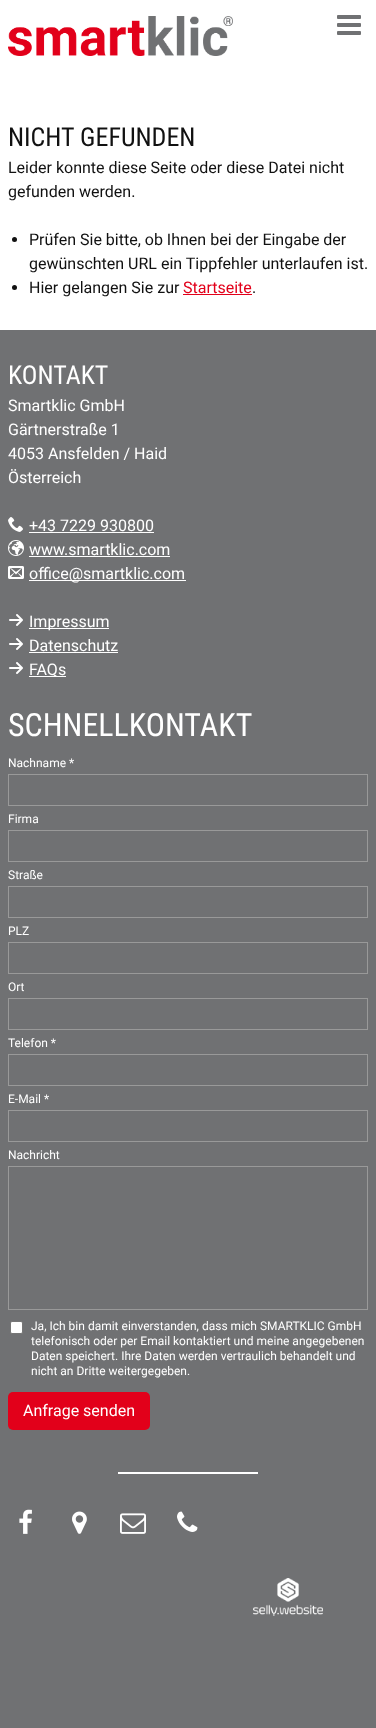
async function draw(canvas) {
  canvas.width = 376;
  canvas.height = 1728;
  const ctx = canvas.getContext('2d');
  ctx.miterLimit = 4;
  ctx.fontKerning = 'normal';
  function label(s, x, y, font, color) {
    ctx.font = font;
    ctx.fillStyle = color;
    ctx.fillText(s, x, y);
  }
  function rect(x, y, w, h, color) {
    ctx.fillStyle = color;
    ctx.fillRect(x, y, w, h);
  }
  function roundedRect(x, y, w, h, r, color) {
    ctx.fillStyle = color;
    ctx.beginPath();
    ctx.roundRect(x, y, w, h, r);
    ctx.fill();
  }
  async function image(src, x, y, w, h) {
    const img = new Image();
    img.src = src;
    await img.decode();
    ctx.drawImage(img, x, y, w, h);
  }

  rect(0, 0, 376, 1728, '#707173');
  rect(0, 0, 376, 330, '#fff');
  await image('assets/img1.png', 8, 16, 225, 40);
  await image('assets/img2.png', 337, 15, 24, 20);
  label('NICHT GEFUNDEN', 8, 146, '26px Roboto Condensed', '#111');
  label('Leider konnte diese Seite oder diese Datei nicht', 8, 173, '16px Roboto', '#111');
  label('gefunden werden.', 8, 197, '16px Roboto', '#111');
  ctx.beginPath();
  ctx.arc(14.5, 239.5, 2.5, 0, 2 * Math.PI);
  ctx.fill();
  label('Prüfen Sie bitte, ob Ihnen bei der Eingabe der', 29, 245, '16px Roboto', '#111');
  label('gewünschten URL ein Tippfehler unterlaufen ist.', 29, 269, '16px Roboto', '#111');
  ctx.beginPath();
  ctx.arc(14.5, 287.5, 2.5, 0, 2 * Math.PI);
  ctx.fill();
  label('Hier gelangen Sie zur', 29, 293, '16px Roboto', '#111');
  label('Startseite', 183, 293, '16px Roboto', '#e2001a');
  rect(183, 294, 69, 1, '#e2001a');
  label('.', 252, 293, '16px Roboto', '#111');
  label('KONTAKT', 8, 384, '26px Roboto Condensed', '#fff');
  label('Smartklic GmbH', 8, 411, '16px Roboto', '#fff');
  label('Gärtnerstraße 1', 8, 435, '16px Roboto', '#fff');
  label('4053 Ansfelden / Haid', 8, 459, '16px Roboto', '#fff');
  label('Österreich', 8, 483, '16px Roboto', '#fff');
  await image('assets/img3.png', 8, 517, 15, 15);
  label('+43 7229 930800', 29, 531, '16px Roboto', '#fff');
  rect(29, 532, 125, 1, '#fff');
  await image('assets/img4.png', 8, 540, 16, 16);
  label('www.smartklic.com', 29, 555, '16px Roboto', '#fff');
  rect(29, 556, 141, 1, '#fff');
  await image('assets/img5.png', 8, 566, 16, 13);
  rect(29, 580, 157, 1, '#fff');
  label('office@smartklic.com', 29, 579, '16px Roboto', '#fff');
  await image('assets/img6.png', 9, 614, 14, 12);
  rect(29, 628, 80, 1, '#fff');
  label('Impressum', 29, 627, '16px Roboto', '#fff');
  await image('assets/img6.png', 9, 638, 14, 12);
  label('Datenschutz', 29, 651, '16px Roboto', '#fff');
  rect(29, 652, 89, 1, '#fff');
  await image('assets/img6.png', 9, 662, 14, 12);
  rect(29, 676, 37, 1, '#fff');
  label('FAQs', 29, 675, '16px Roboto', '#fff');
  label('SCHNELLKONTAKT', 8, 736, '32px Roboto Condensed', '#fff');
  label('Nachname *', 8, 767, '12px Roboto', '#fff');
  ctx.strokeStyle = '#999';
  ctx.strokeRect(8.5, 774.5, 359, 31);
  label('Firma', 8, 823, '12px Roboto', '#fff');
  ctx.strokeRect(8.5, 830.5, 359, 31);
  label('Straße', 8, 879, '12px Roboto', '#fff');
  ctx.strokeRect(8.5, 886.5, 359, 31);
  label('PLZ', 8, 935, '12px Roboto', '#fff');
  ctx.strokeRect(8.5, 942.5, 359, 31);
  label('Ort', 8, 991, '12px Roboto', '#fff');
  ctx.strokeRect(8.5, 998.5, 359, 31);
  label('Telefon *', 8, 1047, '12px Roboto', '#fff');
  ctx.strokeRect(8.5, 1054.5, 359, 31);
  label('E-Mail *', 8, 1103, '12px Roboto', '#fff');
  ctx.strokeRect(8.5, 1110.5, 359, 31);
  label('Nachricht', 8, 1159, '12px Roboto', '#fff');
  ctx.strokeRect(8.5, 1166.5, 359, 143);
  ctx.beginPath();
  ctx.roundRect(10.5, 1321.5, 12, 12, 1.5);
  ctx.fill();
  ctx.strokeStyle = '#767676';
  ctx.stroke();
  label('Ja, Ich bin damit einverstanden, dass mich SMARTKLIC GmbH', 31, 1330, '12px Roboto', '#fff');
  label('telefonisch oder per Email kontaktiert und meine angegebenen', 31, 1345, '12px Roboto', '#fff');
  label('Daten speichert. Ihre Daten werden vertraulich behandelt und', 31, 1360, '12px Roboto', '#fff');
  label('nicht an Dritte weitergegeben.', 31, 1375, '12px Roboto', '#fff');
  roundedRect(8, 1392, 142, 38, 5, '#e2001a');
  label('Anfrage senden', 23, 1416, '16px Roboto', '#fff');
  rect(118, 1472, 140, 2, '#fff');
  await image('assets/img7.png', 19, 1509, 13, 25);
  await image('assets/img8.png', 72, 1511, 15, 23);
  await image('assets/img9.png', 120, 1513, 26, 21);
  await image('assets/img10.png', 177, 1511, 21, 21);
  await image('assets/img11.png', 253, 1578, 70, 38);
}

draw(document.querySelector('canvas'));
